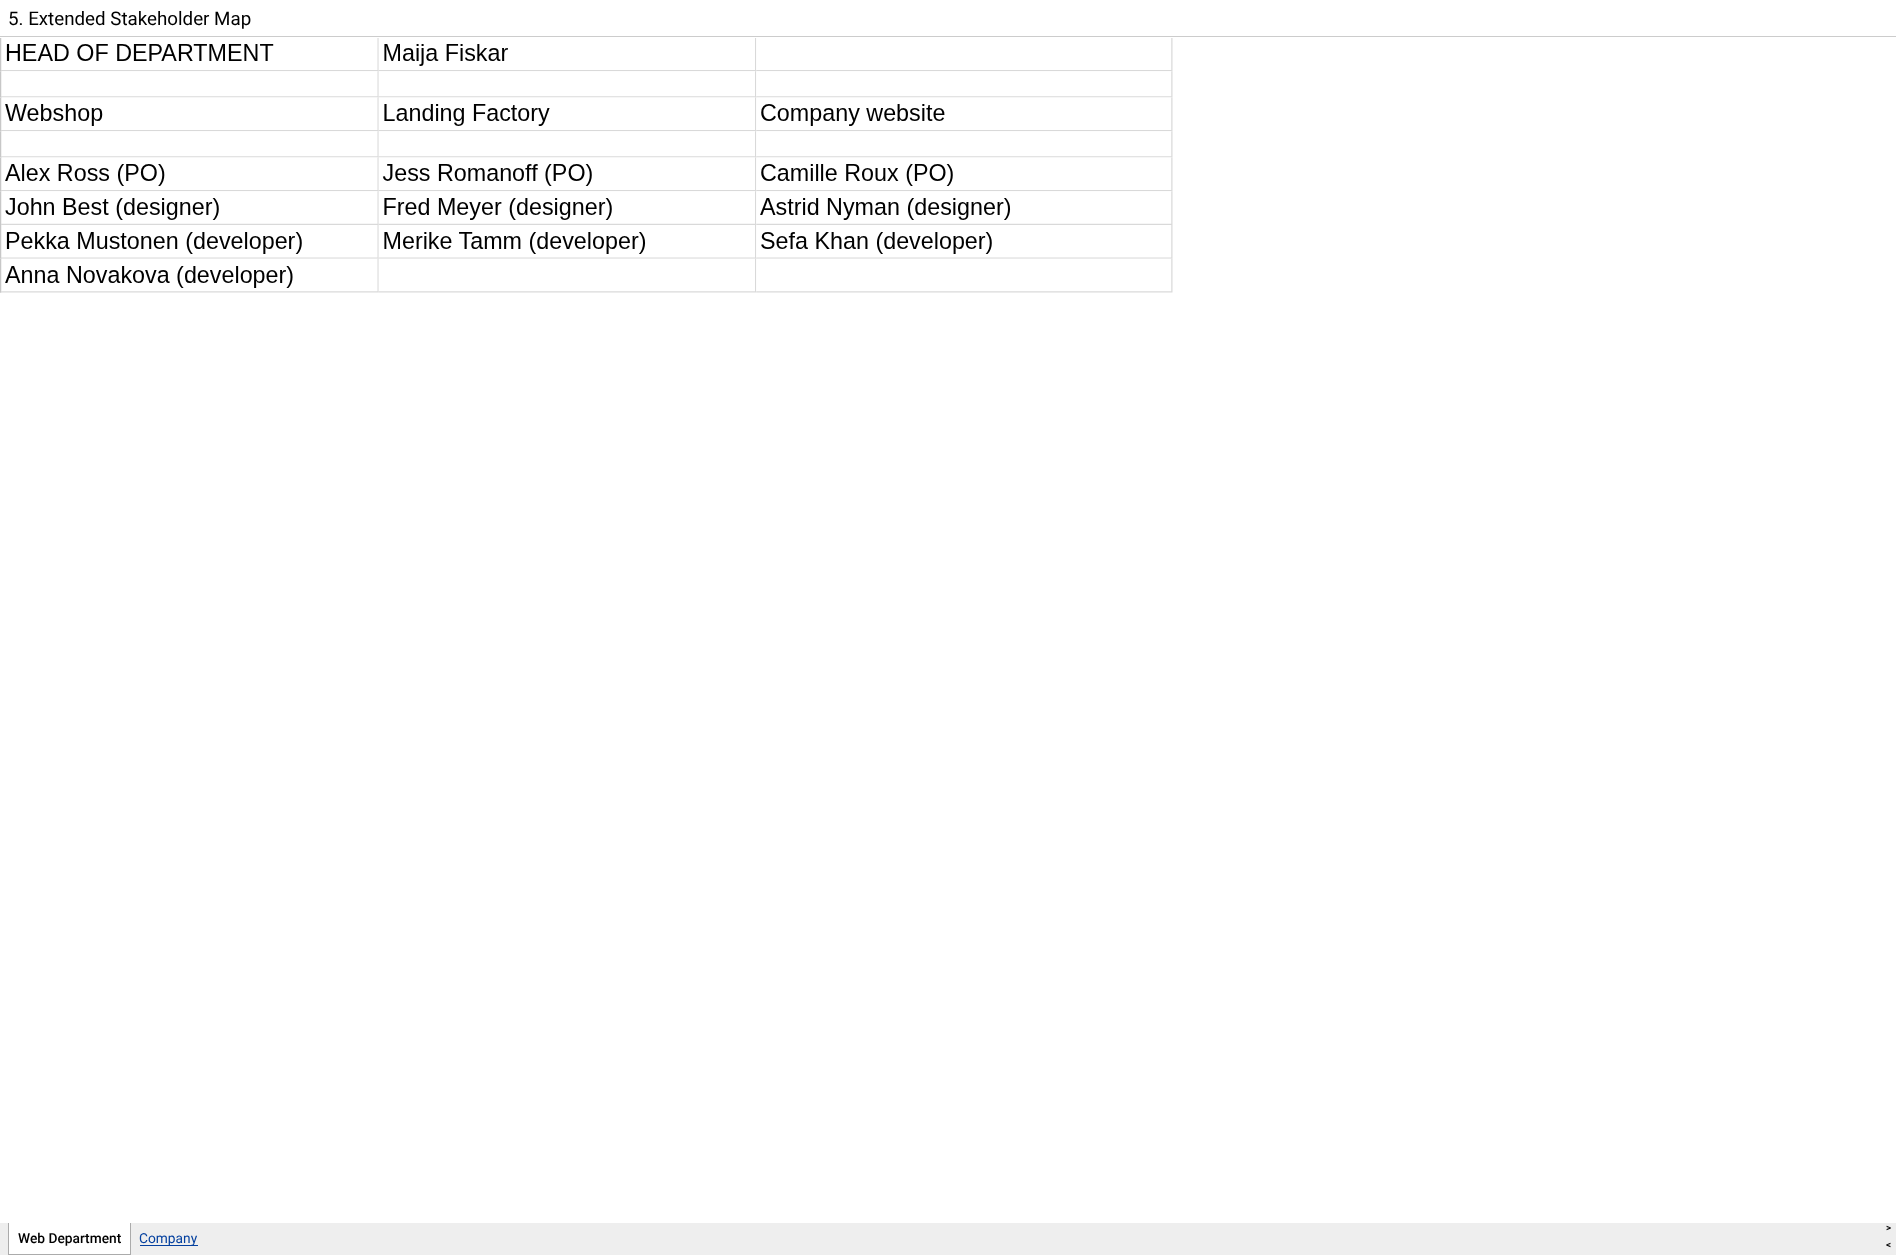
async function draw(canvas) {
  canvas.width = 1896;
  canvas.height = 1255;
  const ctx = canvas.getContext('2d');
  ctx.miterLimit = 4;
  ctx.fontKerning = 'normal';
  function label(s, x, y, font, color) {
    ctx.font = font;
    ctx.fillStyle = color;
    ctx.fillText(s, x, y);
  }
  function rect(x, y, w, h, color) {
    ctx.fillStyle = color;
    ctx.fillRect(x, y, w, h);
  }
  async function image(src, x, y, w, h) {
    const img = new Image();
    img.src = src;
    await img.decode();
    ctx.drawImage(img, x, y, w, h);
  }

  rect(0, 0, 1896, 1255, '#fff');
  rect(0, 36, 1896, 1, '#ccc');
  label('5. Extended Stakeholder Map', 8, 25, '18.75px Roboto', '#000');
  await image('assets/img1.png', 0, 38, 1173, 255);
  rect(0, 1223, 1896, 32, '#eee');
  rect(9, 1223, 121, 31, '#fff');
  rect(130, 1223, 1, 32, '#ababab');
  rect(8, 1254, 123, 1, '#ababab');
  rect(8, 1223, 1, 32, '#ababab');
  label('Web Department', 18, 1243, '500 13.75px Roboto', '#000');
  rect(140, 1245, 58, 1, '#04409f');
  label('Company', 139, 1243, '13.75px Roboto', '#04409f');
  label('>', 1886, 1231, 'bold 10px Roboto', '#000');
  label('<', 1886, 1248, 'bold 10px Roboto', '#000');
}

draw(document.querySelector('canvas'));
